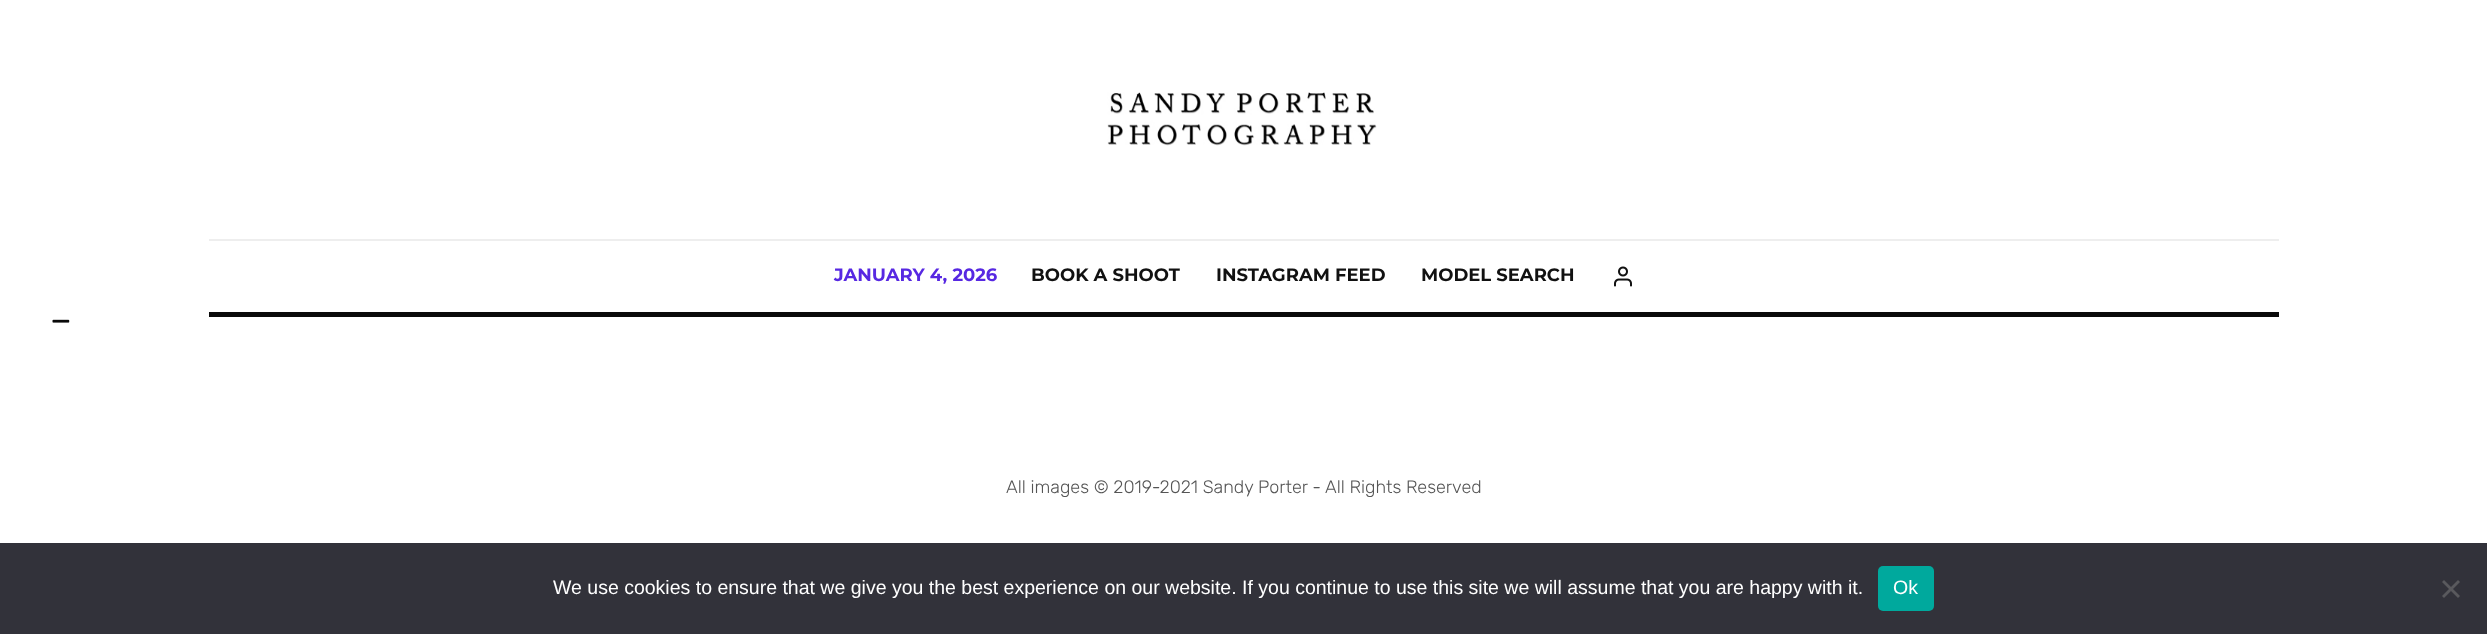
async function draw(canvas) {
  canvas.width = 2487;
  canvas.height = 634;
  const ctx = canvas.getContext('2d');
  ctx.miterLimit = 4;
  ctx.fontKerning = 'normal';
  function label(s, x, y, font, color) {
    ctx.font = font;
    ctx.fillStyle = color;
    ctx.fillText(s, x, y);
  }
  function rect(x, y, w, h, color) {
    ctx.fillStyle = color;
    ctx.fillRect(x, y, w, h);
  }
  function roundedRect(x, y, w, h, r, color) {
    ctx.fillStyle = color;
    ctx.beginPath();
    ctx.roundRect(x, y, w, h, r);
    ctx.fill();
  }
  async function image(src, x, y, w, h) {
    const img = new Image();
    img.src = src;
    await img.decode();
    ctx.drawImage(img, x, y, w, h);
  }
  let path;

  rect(0, 0, 2487, 634, '#fff');
  await image('assets/img1.png', 1107, 92, 270, 54);
  rect(209, 239, 2070, 2, '#eee');
  rect(209, 312, 2070, 5, '#0a0a0a');
  label('JANUARY 4, 2026', 834, 281, 'bold 18px Montserrat', '#5728e2');
  label('BOOK A SHOOT', 1031, 281, 'bold 18px Montserrat', '#111');
  label('INSTAGRAM FEED', 1216, 281, 'bold 18px Montserrat', '#111');
  label('MODEL SEARCH', 1421, 281, 'bold 18px Montserrat', '#111');
  await image('assets/img2.png', 1614, 266, 18, 21);
  await image('assets/img3.png', 52, 319, 18, 4);
  label('All images © 2019-2021 Sandy Porter -', 1006, 493, '300 18px Rubik', '#555');
  label('All Rights Reserved', 1325, 493, '300 18px Rubik', '#555');
  rect(0, 543, 2487, 91, '#32323a');
  label('We use cookies to ensure that we give you the best experience on our website. If you continue to use this site we will assume that you are happy with it.', 553, 594, '19.5px Liberation Sans', '#fff');
  roundedRect(1878, 566, 56, 45, 5, '#00a99d');
  label('Ok', 1893, 594, '19.5px Liberation Sans', '#fff');
  ctx.fillStyle = '#59595d';
  path = new Path2D('M2458 580L2460 582L2444 598L2442 596Z');
  ctx.fill(path);
  path = new Path2D('M2442 582L2444 580L2460 596L2458 598Z');
  ctx.fill(path);
}

draw(document.querySelector('canvas'));
